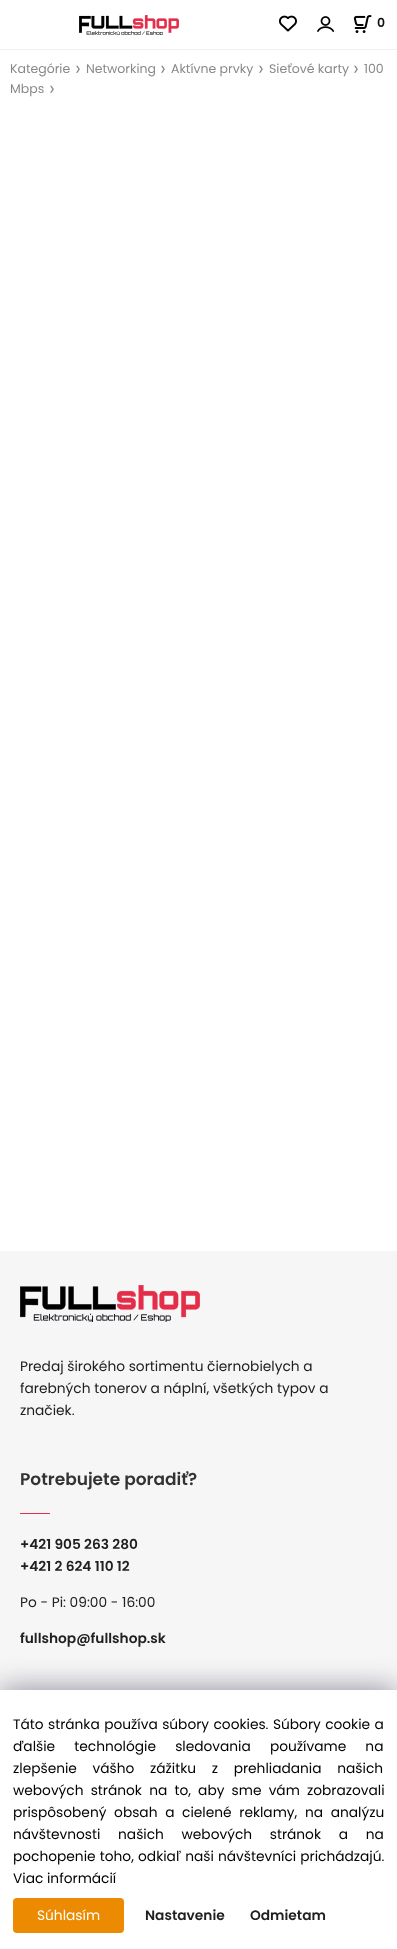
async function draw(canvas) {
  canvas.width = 397;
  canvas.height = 1949;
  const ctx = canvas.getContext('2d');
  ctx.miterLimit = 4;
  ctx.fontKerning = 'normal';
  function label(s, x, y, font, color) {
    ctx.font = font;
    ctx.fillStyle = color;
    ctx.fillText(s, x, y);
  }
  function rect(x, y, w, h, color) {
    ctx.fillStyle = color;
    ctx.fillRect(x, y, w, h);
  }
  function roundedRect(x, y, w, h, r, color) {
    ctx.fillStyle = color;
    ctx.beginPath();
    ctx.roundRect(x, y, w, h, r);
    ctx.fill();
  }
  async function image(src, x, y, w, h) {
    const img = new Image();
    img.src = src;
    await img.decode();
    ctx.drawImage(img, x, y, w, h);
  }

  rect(0, 0, 397, 1949, '#fff');
  await image('assets/img1.png', 79, 15, 100, 20);
  rect(0, 49, 397, 1, '#f0f0f0');
  await image('assets/img2.png', 279, 15, 18, 17);
  await image('assets/img3.png', 317, 16, 19, 16);
  await image('assets/img4.png', 353, 15, 19, 18);
  label('0', 377, 27, '600 12.5px Poppins', '#101010');
  label('Kategórie', 10, 73, '12.5px Poppins', '#888');
  label('❯', 75, 71, '7px DejaVu Sans', '#888');
  label('100', 364, 73, '12.5px Poppins', '#888');
  label('Mbps', 10, 93, '12.5px Poppins', '#888');
  label('❯', 49, 91, '7px DejaVu Sans', '#888');
  label('Networking', 86, 73, '12.5px Poppins', '#888');
  label('❯', 160, 71, '7px DejaVu Sans', '#888');
  label('Aktívne prvky', 171, 73, '12.5px Poppins', '#888');
  label('❯', 258, 71, '7px DejaVu Sans', '#888');
  label('Sieťové karty', 269, 73, '12.5px Poppins', '#888');
  label('❯', 353, 71, '7px DejaVu Sans', '#888');
  rect(0, 1251, 397, 439, '#f6f6f6');
  await image('assets/img5.png', 20, 1285, 180, 37);
  label('Predaj širokého sortimentu čiernobielych a', 20, 1371, '13.75px Poppins', '#202020');
  label('farebných tonerov a náplní, všetkých typov a', 20, 1393, '13.75px Poppins', '#202020');
  label('značiek.', 20, 1415, '13.75px Poppins', '#202020');
  label('Potrebujete poradiť?', 20, 1485, '600 17px Poppins', '#333');
  rect(20, 1513, 30, 1, '#e32d49');
  label('+421 905 263 280', 20, 1549, '600 13.75px Poppins', '#202020');
  label('+421 2 624 110 12', 20, 1571, '600 13.75px Poppins', '#202020');
  label('Po - Pi: 09:00 - 16:00', 20, 1607, '13.75px Poppins', '#202020');
  label('fullshop@fullshop.sk', 20, 1643, '600 13.75px Poppins', '#202020');
  ctx.fillStyle = '#1b193980';
  ctx.filter = 'blur(15px)';
  ctx.beginPath();
  ctx.rect(0, 1690, 397, 259);
  ctx.fill();
  ctx.filter = 'none';
  rect(0, 1690, 397, 259, '#fff');
  ctx.wordSpacing = '0.75px';
  label('Táto stránka používa súbory cookies. Súbory cookie a', 13, 1729, '13.75px Poppins', '#000');
  ctx.wordSpacing = '15.5px';
  label('ďalšie technológie sledovania používame na', 13, 1751, '13.75px Poppins', '#000');
  ctx.wordSpacing = '12px';
  label('zlepšenie vášho zážitku z prehliadania našich', 13, 1773, '13.75px Poppins', '#000');
  ctx.wordSpacing = '3.5px';
  label('webových stránok na to, aby sme vám zobrazovali', 13, 1795, '13.75px Poppins', '#000');
  ctx.wordSpacing = '4px';
  label('prispôsobený obsah a cielené reklamy, na analýzu', 13, 1817, '13.75px Poppins', '#000');
  ctx.wordSpacing = '14px';
  label('návštevnosti našich webových stránok a na', 13, 1839, '13.75px Poppins', '#000');
  ctx.wordSpacing = '0.5px';
  label('pochopenie toho, odkiaľ naši návštevníci prichádzajú.', 13, 1861, '13.75px Poppins', '#000');
  ctx.wordSpacing = '0px';
  label('Viac informácií', 13, 1883, '13.75px Poppins', '#000');
  roundedRect(13, 1898, 111, 35, 4, '#ec8b01');
  label('Súhlasím', 37, 1920, '13.75px Poppins', '#fff');
  label('Nastavenie', 145, 1920, '600 13.75px Poppins', '#202020');
  label('Odmietam', 250, 1920, '600 13.75px Poppins', '#202020');
}

draw(document.querySelector('canvas'));
